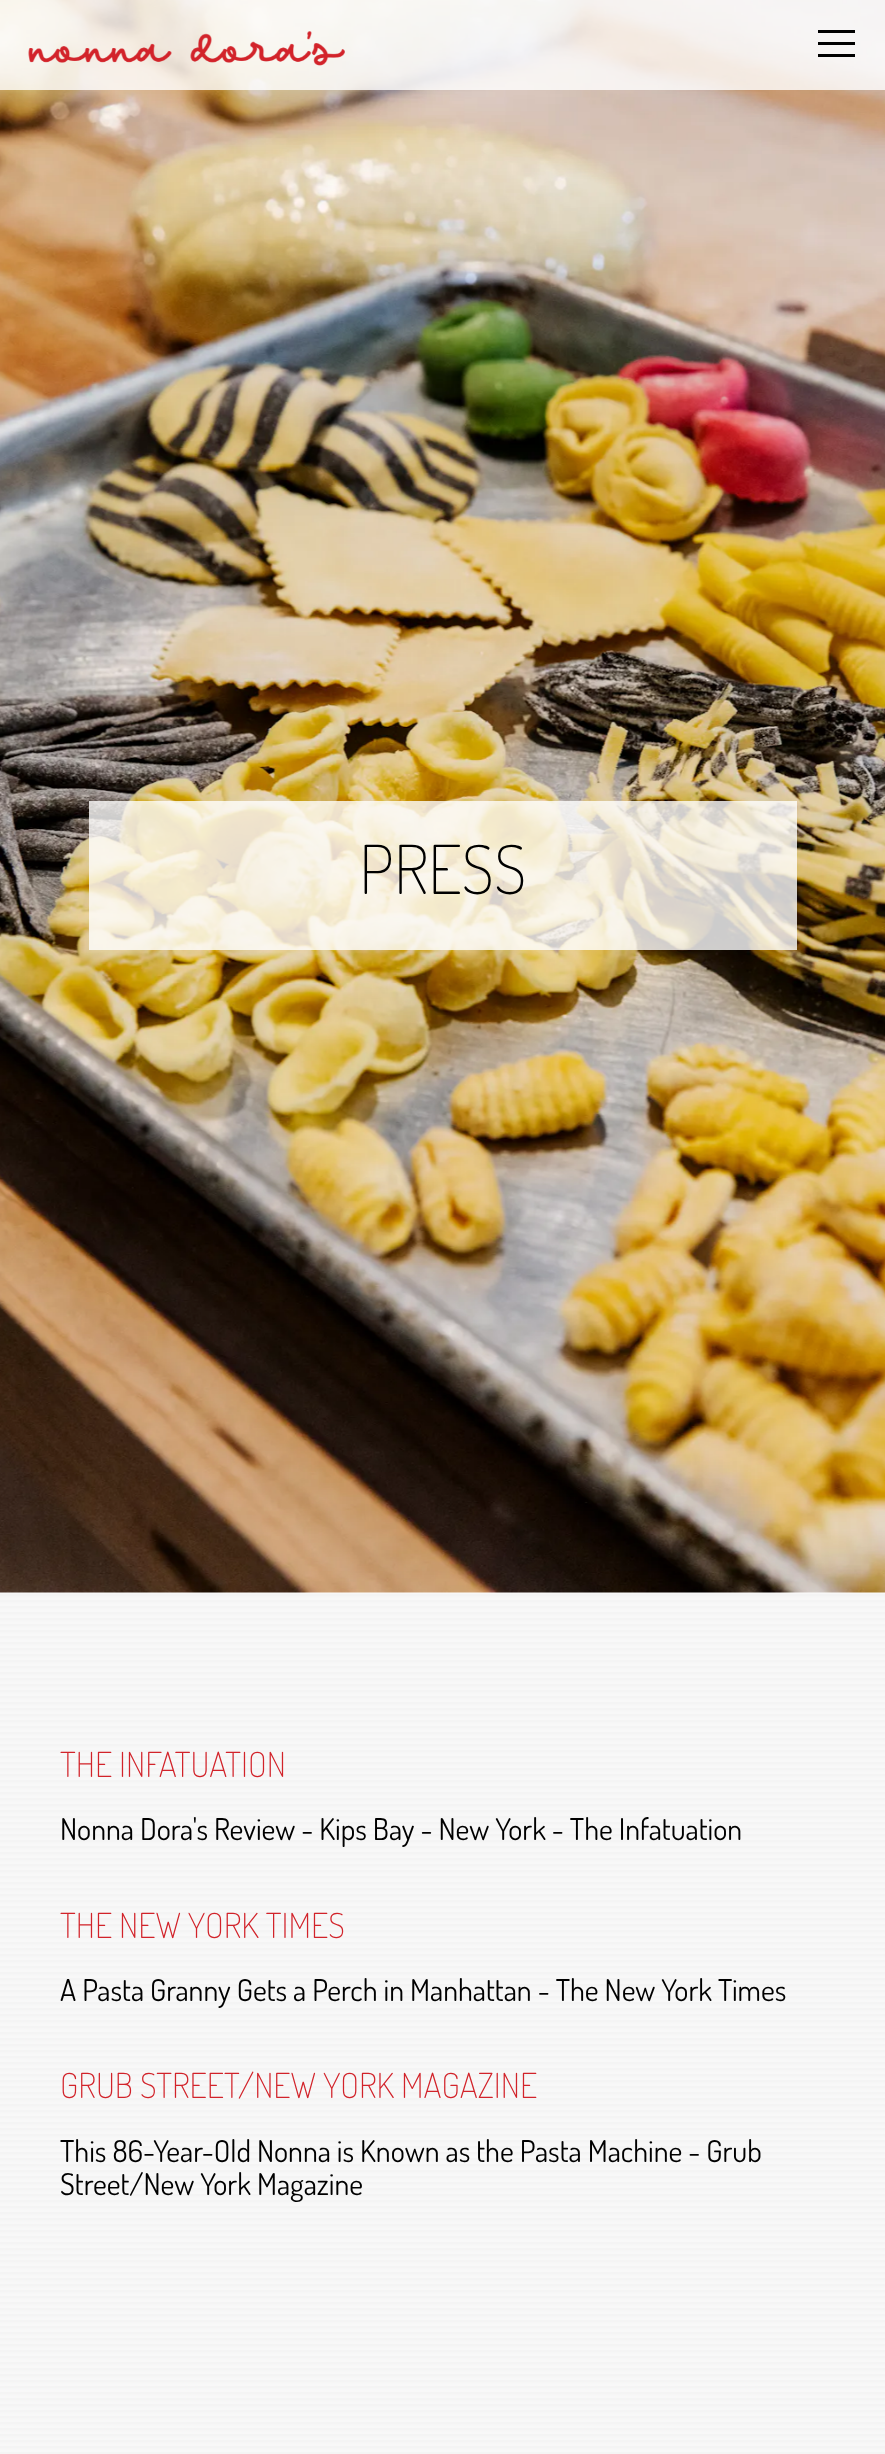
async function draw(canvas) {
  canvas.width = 885;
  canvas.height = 2454;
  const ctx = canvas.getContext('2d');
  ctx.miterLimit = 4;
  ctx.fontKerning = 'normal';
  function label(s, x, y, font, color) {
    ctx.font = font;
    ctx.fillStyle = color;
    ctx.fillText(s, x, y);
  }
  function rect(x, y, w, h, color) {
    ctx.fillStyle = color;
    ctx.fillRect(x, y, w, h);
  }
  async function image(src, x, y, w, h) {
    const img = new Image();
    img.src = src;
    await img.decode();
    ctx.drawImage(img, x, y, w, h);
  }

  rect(0, 0, 885, 2454, '#fff');
  await image('assets/img1.png', 0, 1593, 885, 861);
  await image('assets/img3.png', 0, 0, 885, 1593);
  rect(0, 0, 885, 90, '#ffffffcc');
  await image('assets/img2.png', 28, 31, 317, 35);
  rect(818, 30, 37, 3, '#000');
  rect(818, 42, 37, 3, '#000');
  rect(818, 54, 37, 3, '#000');
  rect(89, 801, 708, 149, '#ffffffcc');
  label('PRESS', 359, 894, '200 67.5px Dosis', '#000');
  label('THE INFATUATION', 60, 1777, '200 34.5px Dosis', '#d2232a');
  label('Nonna Dora\'s Review - Kips Bay - New York - The Infatuation', 60, 1840, '30px Dosis', '#000');
  label('THE NEW YORK TIMES', 60, 1938, '200 34.5px Dosis', '#d2232a');
  label('A Pasta Granny Gets a Perch in Manhattan - The New York Times', 60, 2001, '30px Dosis', '#000');
  label('GRUB STREET/NEW YORK MAGAZINE', 60, 2098, '200 34.5px Dosis', '#d2232a');
  label('This 86-Year-Old Nonna is Known as the Pasta Machine - Grub', 60, 2162, '30px Dosis', '#000');
  label('Street/New York Magazine', 60, 2195, '30px Dosis', '#000');
}

draw(document.querySelector('canvas'));
